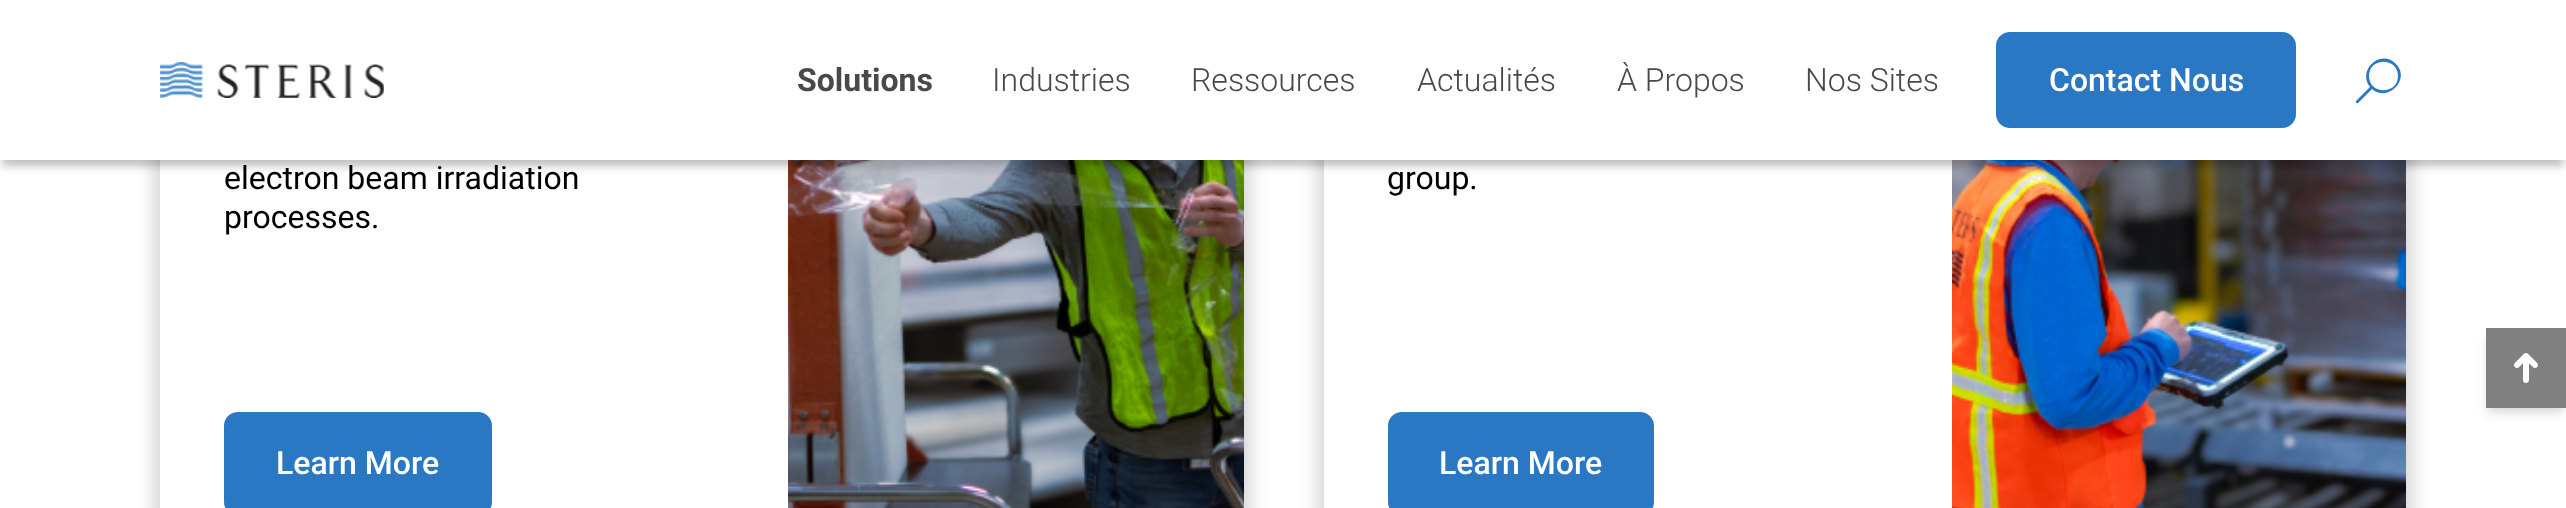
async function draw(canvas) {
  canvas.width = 2566;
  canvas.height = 508;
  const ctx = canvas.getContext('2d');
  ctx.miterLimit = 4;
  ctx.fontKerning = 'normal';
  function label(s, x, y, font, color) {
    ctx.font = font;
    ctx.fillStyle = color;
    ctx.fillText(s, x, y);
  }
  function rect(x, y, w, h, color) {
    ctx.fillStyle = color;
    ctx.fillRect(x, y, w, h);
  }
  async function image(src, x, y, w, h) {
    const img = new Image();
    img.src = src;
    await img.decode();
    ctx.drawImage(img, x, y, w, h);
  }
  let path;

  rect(0, 0, 2566, 508, '#fff');
  ctx.save();
  path = new Path2D('M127 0H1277V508H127ZM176-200H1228C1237-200 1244-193 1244-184V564C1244 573 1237 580 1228 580H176C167 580 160 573 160 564V-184C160-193 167-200 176-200Z');
  ctx.clip(path, 'evenodd');
  ctx.fillStyle = '#0000002b';
  ctx.filter = 'blur(8.5px)';
  ctx.beginPath();
  ctx.roundRect(154, -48, 1096, 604, 22);
  ctx.fill();
  ctx.filter = 'none';
  ctx.restore();
  await image('assets/img2.png', 788, 160, 456, 348);
  ctx.save();
  path = new Path2D('M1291 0H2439V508H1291ZM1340-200H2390C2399-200 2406-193 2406-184V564C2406 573 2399 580 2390 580H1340C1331 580 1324 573 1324 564V-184C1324-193 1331-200 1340-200Z');
  ctx.clip(path, 'evenodd');
  ctx.fillStyle = '#0000002b';
  ctx.filter = 'blur(8.5px)';
  ctx.beginPath();
  ctx.roundRect(1318, -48, 1094, 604, 22);
  ctx.fill();
  ctx.filter = 'none';
  ctx.restore();
  await image('assets/img3.png', 1952, 160, 454, 348);
  ctx.fillStyle = '#00000040';
  ctx.filter = 'blur(4px)';
  ctx.beginPath();
  ctx.rect(2, 10, 2562, 156);
  ctx.fill();
  ctx.filter = 'none';
  rect(0, 0, 2566, 160, '#fff');
  await image('assets/img1.png', 160, 62, 224, 36);
  label('Solutions', 797, 91, 'bold 32px Roboto', '#494948');
  label('Industries', 992, 91, '300 32px Roboto', '#494948');
  label('Ressources', 1191, 91, '300 32px Roboto', '#494948');
  label('Actualités', 1417, 91, '300 32px Roboto', '#494948');
  label('À Propos', 1617, 91, '300 32px Roboto', '#494948');
  label('Nos Sites', 1805, 91, '300 32px Roboto', '#494948');
  ctx.fillStyle = '#2a78c4';
  ctx.beginPath();
  ctx.roundRect(1998, 34, 296, 92, 12);
  ctx.fill();
  ctx.strokeStyle = '#2a78c4';
  ctx.lineWidth = 4;
  ctx.stroke();
  label('Contact Nous', 2049, 91, '500 32px Roboto', '#fff');
  ctx.fillStyle = '#2a78c4';
  path = new Path2D('M2356 101L2370 87C2357 71 2380 48 2396 64C2411 79 2388 103 2372 89L2358 103C2357 104 2355 102 2356 101ZM2398 76C2398 57 2369 57 2369 76C2369 95 2398 95 2398 76Z');
  ctx.fill(path);
  label('electron beam irradiation', 224, 189, '32px Roboto', '#000');
  label('processes.', 224, 228, '32px Roboto', '#000');
  ctx.fillStyle = '#2a78c4';
  ctx.beginPath();
  ctx.roundRect(226, 414, 264, 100, 12);
  ctx.fill();
  ctx.stroke();
  label('Learn More', 276, 474, '500 32px Roboto', '#fff');
  label('group.', 1387, 189, '32px Roboto', '#000');
  ctx.fillStyle = '#2a78c4';
  ctx.beginPath();
  ctx.roundRect(1390, 414, 262, 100, 12);
  ctx.fill();
  ctx.stroke();
  label('Learn More', 1439, 474, '500 32px Roboto', '#fff');
  ctx.fillStyle = '#0000001a';
  ctx.filter = 'blur(4px)';
  ctx.beginPath();
  ctx.rect(2490, 336, 72, 72);
  ctx.fill();
  ctx.filter = 'none';
  ctx.filter = 'blur(6px)';
  ctx.beginPath();
  ctx.rect(2488, 338, 76, 76);
  ctx.fill();
  ctx.filter = 'none';
  rect(2486, 328, 80, 80, '#808080');
  await image('assets/img4.png', 2514, 353, 24, 30);
}

draw(document.querySelector('canvas'));
